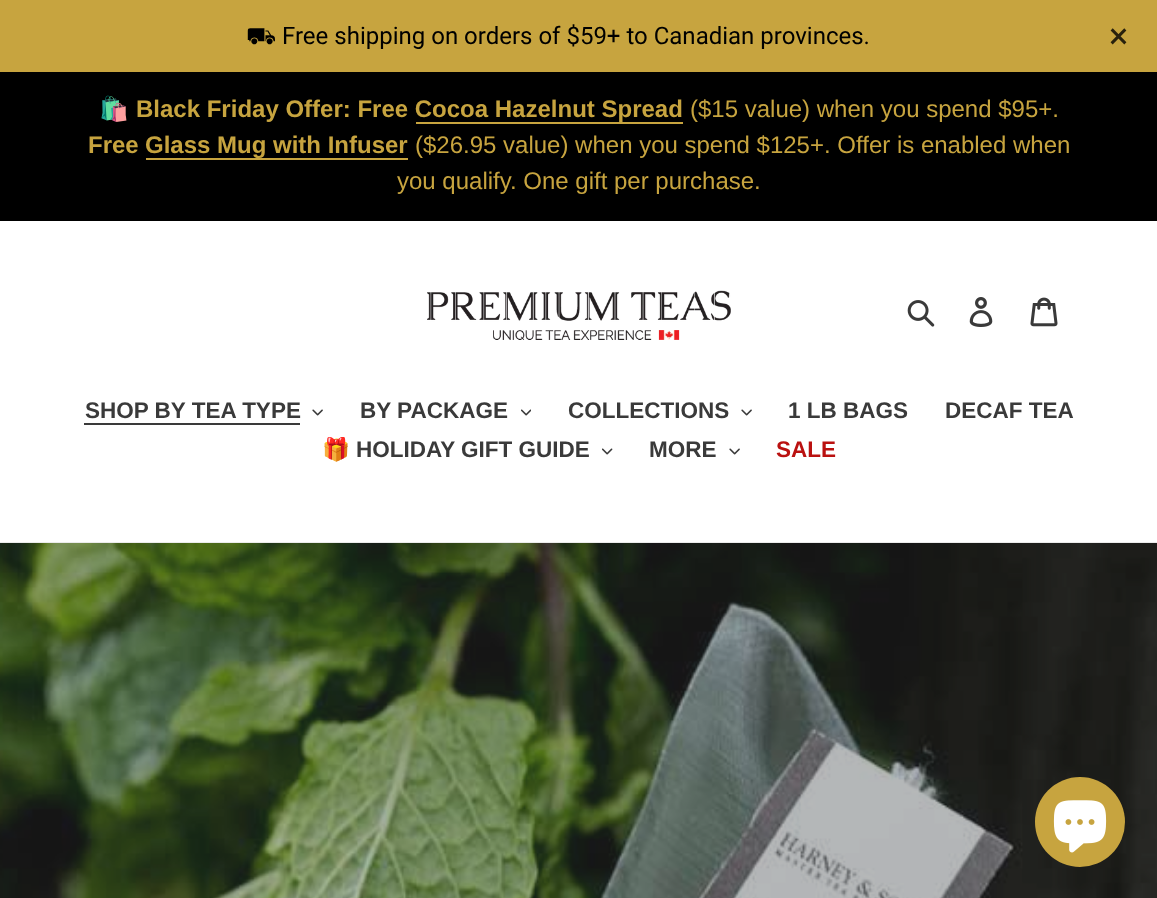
async function draw(canvas) {
  canvas.width = 1157;
  canvas.height = 898;
  const ctx = canvas.getContext('2d');
  ctx.miterLimit = 4;
  ctx.fontKerning = 'normal';
  function label(s, x, y, font, color) {
    ctx.font = font;
    ctx.fillStyle = color;
    ctx.fillText(s, x, y);
  }
  function rect(x, y, w, h, color) {
    ctx.fillStyle = color;
    ctx.fillRect(x, y, w, h);
  }
  async function image(src, x, y, w, h) {
    const img = new Image();
    img.src = src;
    await img.decode();
    ctx.drawImage(img, x, y, w, h);
  }

  rect(0, 0, 1157, 898, '#fff');
  rect(0, 0, 1157, 72, '#c7a43f');
  label('⛟', 246, 44, '24px STIX Two Math', '#000');
  label('Free shipping on orders of $59+ to Canadian provinces.', 282, 44, '24px Roboto', '#000');
  label('×', 1109, 48, '36px Roboto', '#28210d');
  rect(0, 72, 1157, 149, '#000');
  label('🛍️', 99, 117, '24px Noto Color Emoji', '#c7a43f');
  label('Black Friday Offer: Free Cocoa Hazelnut Spread', 136, 117, 'bold 24px Liberation Sans', '#c7a43f');
  label('($15 value) when you spend $95+.', 690, 117, '24px Liberation Sans', '#c7a43f');
  rect(416, 122, 267, 2, '#c7a43f');
  label('Free', 88, 153, 'bold 24px Liberation Sans', '#c7a43f');
  rect(146, 158, 262, 2, '#c7a43f');
  label('Glass Mug with Infuser', 145, 153, 'bold 24px Liberation Sans', '#c7a43f');
  label('($26.95 value) when you spend $125+. Offer is enabled when', 415, 153, '24px Liberation Sans', '#c7a43f');
  label('you qualify. One gift per purchase.', 397, 189, '24px Liberation Sans', '#c7a43f');
  await image('assets/img1.png', 427, 290, 304, 50);
  await image('assets/img2.png', 907, 300, 28, 27);
  await image('assets/img3.png', 969, 297, 24, 30);
  await image('assets/img4.png', 1030, 297, 28, 30);
  rect(0, 542, 1157, 1, '#ebebeb');
  label('SHOP BY TEA TYPE', 85, 418, 'bold 22.5px Liberation Sans', '#3a3a3a');
  rect(84, 423, 216, 2, '#3a3a3a');
  await image('assets/img5.png', 312, 409, 11, 7);
  label('BY PACKAGE', 360, 418, 'bold 22.5px Liberation Sans', '#3a3a3a');
  await image('assets/img6.png', 521, 409, 10, 7);
  label('COLLECTIONS', 568, 418, 'bold 22.5px Liberation Sans', '#3a3a3a');
  await image('assets/img5.png', 741, 409, 11, 7);
  label('1 LB BAGS', 788, 418, 'bold 22.5px Liberation Sans', '#3a3a3a');
  label('DECAF TEA', 945, 418, 'bold 22.5px Liberation Sans', '#3a3a3a');
  label('🎁', 322, 457, 'bold 22.5px Noto Color Emoji', '#3a3a3a');
  label('HOLIDAY GIFT GUIDE', 356, 457, 'bold 22.5px Liberation Sans', '#3a3a3a');
  await image('assets/img7.png', 602, 448, 11, 7);
  label('MORE', 649, 457, 'bold 22.5px Liberation Sans', '#3a3a3a');
  await image('assets/img5.png', 729, 448, 11, 7);
  label('SALE', 776, 457, 'bold 22.5px Liberation Sans', '#ba1110');
  await image('assets/img8.png', 0, 543, 1157, 355);
  ctx.fillStyle = '#c7a43f';
  ctx.beginPath();
  ctx.arc(1080, 822, 45, 0, 2 * Math.PI);
  ctx.fill();
  await image('assets/img9.png', 1053, 800, 54, 53);
}

draw(document.querySelector('canvas'));
